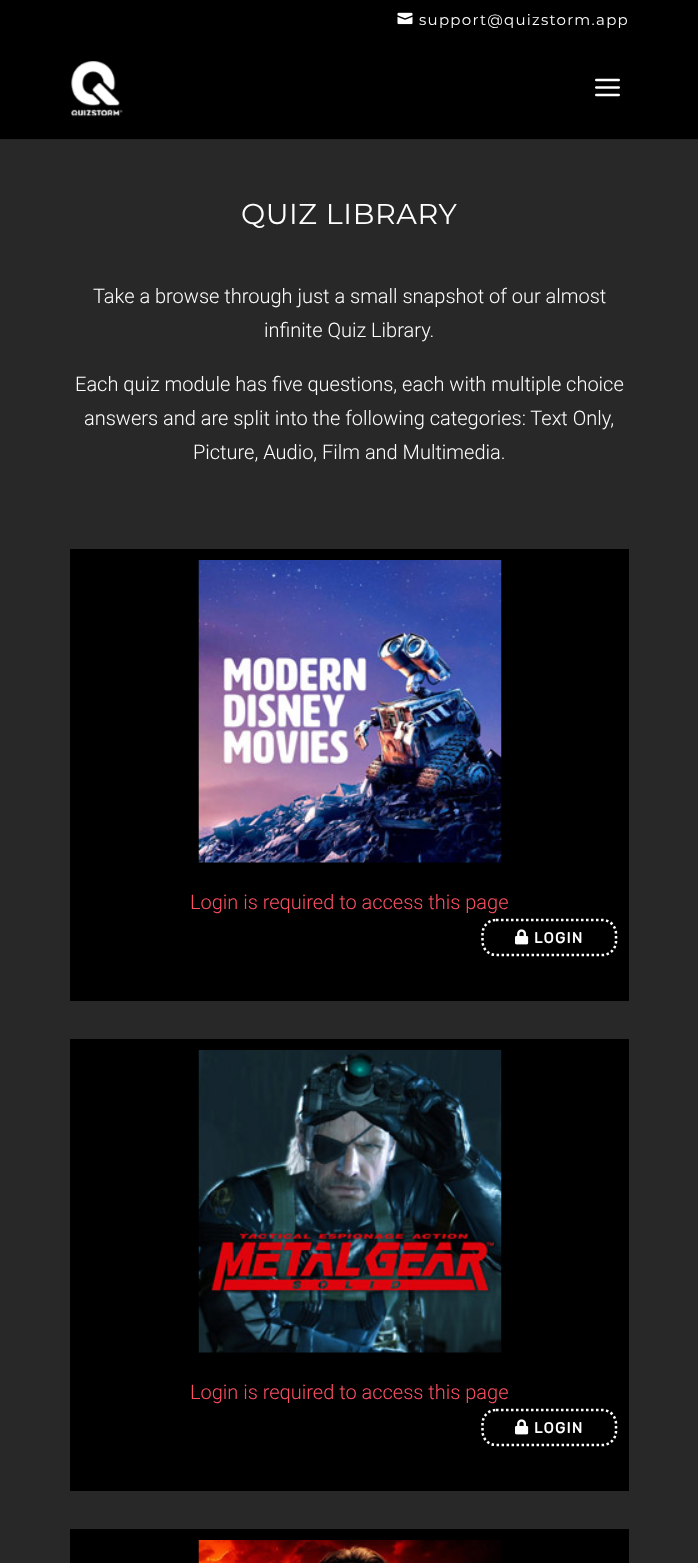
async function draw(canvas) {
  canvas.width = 698;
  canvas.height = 1563;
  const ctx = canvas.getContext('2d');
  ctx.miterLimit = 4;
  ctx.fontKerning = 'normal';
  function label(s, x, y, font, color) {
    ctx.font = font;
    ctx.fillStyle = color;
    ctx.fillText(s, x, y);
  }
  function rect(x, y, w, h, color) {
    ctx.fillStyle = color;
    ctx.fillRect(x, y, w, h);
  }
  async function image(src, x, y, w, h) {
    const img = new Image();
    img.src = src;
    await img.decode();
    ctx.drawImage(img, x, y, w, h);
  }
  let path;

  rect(0, 0, 698, 1563, '#000');
  await image('assets/img1.png', 397, 12, 16, 13);
  ctx.letterSpacing = '1.25px';
  label('support@quizstorm.app', 419, 25, '15px Montserrat', '#fff');
  ctx.fillStyle = '#242424';
  path = new Path2D('M0 139V140H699V40V139Z');
  ctx.fill(path);
  await image('assets/img2.png', 71, 61, 52, 56);
  await image('assets/img3.png', 595, 78, 25, 19);
  rect(0, 140, 698, 1423, '#282828');
  ctx.letterSpacing = '0.6px';
  label('QUIZ LIBRARY', 241, 224, '28.75px Montserrat', '#fff');
  ctx.letterSpacing = '0px';
  label('Take a browse through just a small snapshot of our almost', 93, 303, '300 20px Roboto', '#fff');
  label('infinite Quiz Library.', 264, 337, '300 20px Roboto', '#fff');
  label('Each quiz module has five questions, each with multiple choice', 75, 391, '300 20px Roboto', '#fff');
  label('answers and are split into the following categories: Text Only,', 84, 425, '300 20px Roboto', '#fff');
  label('Picture, Audio, Film and Multimedia.', 193, 459, '300 20px Roboto', '#fff');
  rect(70, 549, 559, 452, '#000');
  await image('assets/img4.png', 198, 560, 304, 303);
  label('Login is required to access this page', 190, 909, '300 20px Roboto', '#ff5062');
  path = new Path2D('M496 920H602.5C610 920 616 926 616 934V941C616 949 610 955 602.5 955H496C488.5 955 482.5 949 482.5 941V934C482.5 926 488.5 920 496 920Z');
  ctx.strokeStyle = '#fff';
  ctx.lineWidth = 2.5;
  ctx.setLineDash([2.5, 2.5]);
  ctx.stroke(path);
  await image('assets/img5.png', 515, 929, 14, 16);
  ctx.letterSpacing = '1.25px';
  label('LOGIN', 534, 943, 'bold 15px Rubik', '#fff');
  rect(70, 1039, 559, 452, '#000');
  await image('assets/img6.png', 198, 1050, 304, 303);
  ctx.letterSpacing = '0px';
  label('Login is required to access this page', 190, 1399, '300 20px Roboto', '#ff5062');
  path = new Path2D('M496 1410H602.5C610 1410 616 1416 616 1424V1431C616 1439 610 1445 602.5 1445H496C488.5 1445 482.5 1439 482.5 1431V1424C482.5 1416 488.5 1410 496 1410Z');
  ctx.stroke(path);
  await image('assets/img5.png', 515, 1419, 14, 16);
  ctx.letterSpacing = '1.25px';
  label('LOGIN', 534, 1433, 'bold 15px Rubik', '#fff');
  rect(70, 1529, 559, 34, '#000');
  await image('assets/img7.png', 198, 1540, 303, 23);
}

draw(document.querySelector('canvas'));
